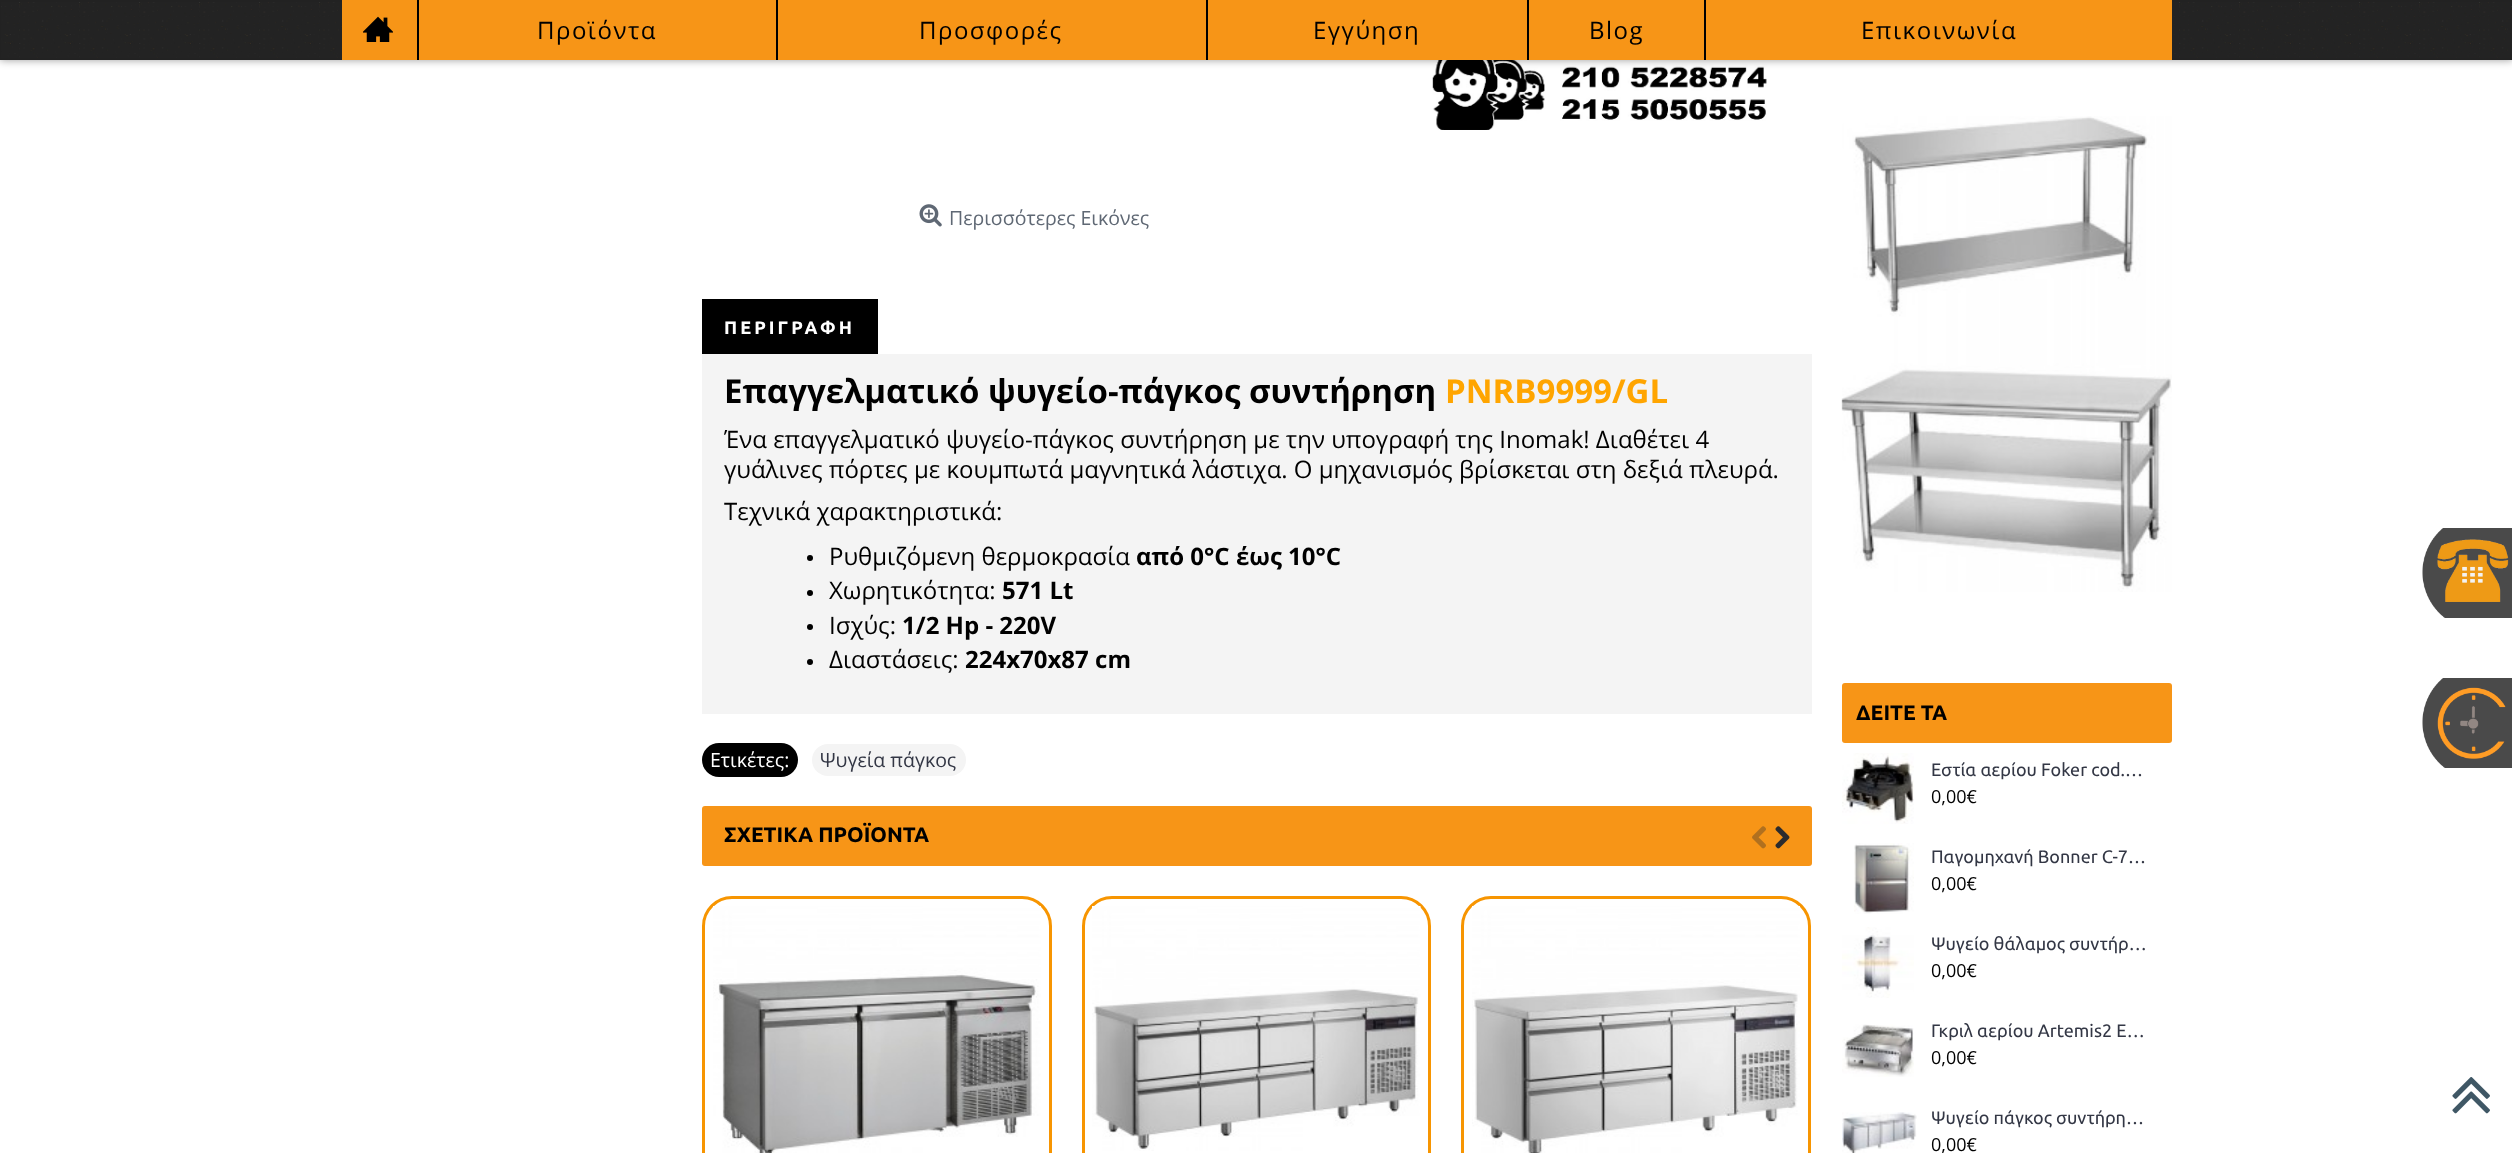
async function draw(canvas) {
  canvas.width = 2512;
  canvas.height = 1153;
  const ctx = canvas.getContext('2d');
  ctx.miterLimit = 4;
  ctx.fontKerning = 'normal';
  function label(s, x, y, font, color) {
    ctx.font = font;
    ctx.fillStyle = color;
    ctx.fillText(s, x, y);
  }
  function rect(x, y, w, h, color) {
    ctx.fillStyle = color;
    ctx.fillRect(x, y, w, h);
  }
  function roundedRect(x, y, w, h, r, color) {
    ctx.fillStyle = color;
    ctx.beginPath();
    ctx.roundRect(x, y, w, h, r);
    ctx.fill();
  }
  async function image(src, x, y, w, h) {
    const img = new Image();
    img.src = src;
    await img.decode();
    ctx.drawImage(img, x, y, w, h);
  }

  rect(0, 0, 2512, 1153, '#fff');
  await image('assets/img3.png', 1432, 60, 335, 70);
  ctx.fillStyle = '#00000066';
  ctx.filter = 'blur(4px)';
  ctx.beginPath();
  ctx.rect(0, 0, 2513, 60);
  ctx.fill();
  ctx.filter = 'none';
  rect(0, 0, 2512, 60, '#222');
  await image('assets/img1.png', 1, 2, 2511, 56);
  rect(342, 0, 1830, 60, '#f79517');
  await image('assets/img2.png', 363, 16, 30, 26);
  rect(417, 0, 2, 60, '#000');
  ctx.letterSpacing = '1.5px';
  label('Προϊόντα', 537, 39, '24px Open Sans', '#000');
  rect(776, 0, 2, 60, '#000');
  label('Προσφορές', 919, 39, '24px Open Sans', '#000');
  rect(1206, 0, 2, 60, '#000');
  label('Εγγύηση', 1313, 39, '24px Open Sans', '#000');
  rect(1527, 0, 2, 60, '#000');
  label('Blog', 1589, 39, '24px Open Sans', '#000');
  rect(1704, 0, 2, 60, '#000');
  label('Επικοινωνία', 1861, 39, '24px Open Sans', '#000');
  await image('assets/img4.png', 919, 204, 23, 23);
  ctx.letterSpacing = '0px';
  label('Περισσότερες Εικόνες', 949, 225, '19.5px Open Sans', '#5f6874');
  rect(702, 299, 176, 55, '#000');
  ctx.letterSpacing = '3px';
  label('ΠΕΡΙΓΡΑΦΗ', 724, 334, 'bold 18px Ubuntu', '#fff');
  rect(702, 354, 1110, 360, '#f4f4f4');
  ctx.letterSpacing = '0px';
  label('Επαγγελματικό ψυγείο-πάγκος συντήρηση', 724, 403, 'bold 33px Open Sans', '#000');
  label('PNRB9999/GL', 1445, 403, 'bold 33px Open Sans', '#ffa500');
  label('Ένα επαγγελματικό ψυγείο-πάγκος συντήρηση με την υπογραφή της Inomak! Διαθέτει 4', 724, 448, '24px Open Sans', '#000');
  label('γυάλινες πόρτες με κουμπωτά μαγνητικά λάστιχα. Ο μηχανισμός βρίσκεται στη δεξιά πλευρά.', 724, 478, '24px Open Sans', '#000');
  label('Τεχνικά χαρακτηριστικά:', 724, 520, '24px Open Sans', '#000');
  ctx.beginPath();
  ctx.arc(810, 558, 3, 0, 2 * Math.PI);
  ctx.fill();
  label('Ρυθμιζόμενη θερμοκρασία', 829, 565, '24px Open Sans', '#000');
  label('από 0°C έως 10°C', 1136, 565, 'bold 24px Open Sans', '#000');
  ctx.beginPath();
  ctx.arc(810, 593, 3, 0, 2 * Math.PI);
  ctx.fill();
  label('Χωρητικότητα:', 829, 599, '24px Open Sans', '#000');
  label('571 Lt', 1002, 599, 'bold 24px Open Sans', '#000');
  ctx.beginPath();
  ctx.arc(810, 627, 3, 0, 2 * Math.PI);
  ctx.fill();
  label('Ισχύς:', 829, 634, '24px Open Sans', '#000');
  label('1/2 Hp - 220V', 902, 634, 'bold 24px Open Sans', '#000');
  ctx.beginPath();
  ctx.arc(810, 662, 3, 0, 2 * Math.PI);
  ctx.fill();
  label('Διαστάσεις:', 829, 668, '24px Open Sans', '#000');
  label('224x70x87 cm', 965, 668, 'bold 24px Open Sans', '#000');
  roundedRect(702, 743, 96, 34, 17, '#000');
  label('Ετικέτες:', 710, 767, '19.5px Open Sans', '#fff');
  roundedRect(812, 744, 154, 32, 16, '#f4f4f4');
  label('Ψυγεία πάγκος', 820, 767, '19.5px Open Sans', '#333745');
  roundedRect(702, 806, 1110, 60, 3, '#f79517');
  label('ΣΧΕΤΙΚΑ ΠΡΟΪΟΝΤΑ', 724, 842, 'bold 21px Ubuntu', '#000');
  await image('assets/img5.png', 1752, 826, 14, 23);
  await image('assets/img6.png', 1775, 826, 15, 23);
  ctx.beginPath();
  ctx.roundRect(703.5, 897.5, 347, 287, 28.5);
  ctx.strokeStyle = '#f79501';
  ctx.lineWidth = 3;
  ctx.stroke();
  await image('assets/img7.png', 713, 906, 328, 247);
  ctx.beginPath();
  ctx.roundRect(1083.5, 897.5, 346, 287, 28.5);
  ctx.stroke();
  await image('assets/img8.png', 1092, 906, 329, 245);
  ctx.beginPath();
  ctx.roundRect(1462.5, 897.5, 347, 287, 28.5);
  ctx.stroke();
  await image('assets/img9.png', 1472, 906, 328, 247);
  await image('assets/img10.png', 1841, 116, 331, 476);
  roundedRect(1842, 683, 330, 60, 3, '#f79517');
  label('ΔΕΙΤΕ ΤΑ', 1856, 720, 'bold 21px Ubuntu', '#000');
  await image('assets/img11.png', 1842, 753, 72, 71);
  label('Εστία αερίου Foker cod.…', 1931, 776, '18px Ubuntu', '#333745');
  label('0,00€', 1931, 803, '18px Open Sans', '#000');
  await image('assets/img12.png', 1854, 843, 60, 71);
  label('Παγομηχανή Bonner C-7…', 1931, 863, '18px Ubuntu', '#333745');
  label('0,00€', 1931, 890, '18px Open Sans', '#000');
  await image('assets/img13.png', 1842, 927, 72, 71);
  label('Ψυγείο θάλαμος συντήρ…', 1931, 950, '18px Ubuntu', '#333745');
  label('0,00€', 1931, 977, '18px Open Sans', '#000');
  await image('assets/img14.png', 1842, 1024, 72, 53);
  label('Γκριλ αερίου Artemis2 E…', 1931, 1037, '18px Ubuntu', '#333745');
  label('0,00€', 1931, 1064, '18px Open Sans', '#000');
  await image('assets/img15.png', 1842, 1112, 75, 41);
  label('Ψυγείο πάγκος συντήρη…', 1931, 1124, '18px Ubuntu', '#333745');
  label('0,00€', 1931, 1151, '18px Open Sans', '#000');
  await image('assets/img16.png', 2422, 528, 90, 90);
  await image('assets/img17.png', 2422, 678, 90, 90);
  await image('assets/img18.png', 2452, 1077, 38, 37);
}

draw(document.querySelector('canvas'));
